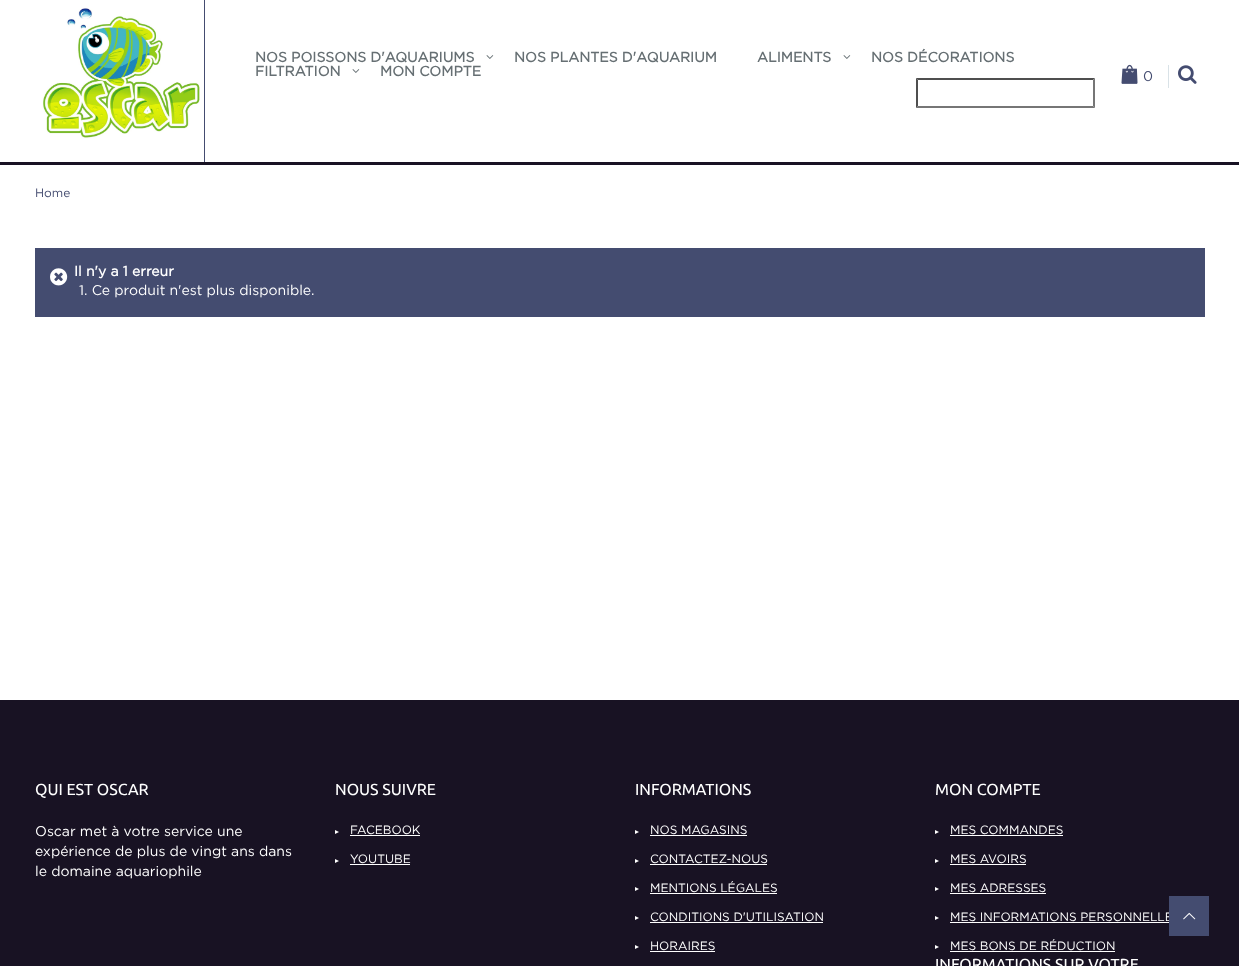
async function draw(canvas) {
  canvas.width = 1239;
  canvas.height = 966;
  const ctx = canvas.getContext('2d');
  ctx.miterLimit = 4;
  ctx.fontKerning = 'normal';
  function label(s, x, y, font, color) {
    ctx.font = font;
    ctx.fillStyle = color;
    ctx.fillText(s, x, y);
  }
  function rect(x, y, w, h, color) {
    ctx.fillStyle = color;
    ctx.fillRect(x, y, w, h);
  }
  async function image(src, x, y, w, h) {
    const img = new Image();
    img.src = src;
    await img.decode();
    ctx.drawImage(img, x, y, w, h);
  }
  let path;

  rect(0, 0, 1239, 966, '#fff');
  rect(0, 162, 1239, 3, '#181223');
  rect(204, 0, 1, 162, '#444c70');
  await image('assets/img1.png', 35, 0, 169, 162);
  label('NOS POISSONS D\'AQUARIUMS', 255, 62, 'bold 14px Gotham', '#666f73');
  await image('assets/img2.png', 486, 55, 8, 4);
  label('NOS PLANTES D\'AQUARIUM', 514, 62, 'bold 14px Gotham', '#666f73');
  label('ALIMENTS', 757, 62, 'bold 14px Gotham', '#666f73');
  await image('assets/img2.png', 843, 55, 8, 4);
  label('NOS DÉCORATIONS', 871, 62, 'bold 14px Gotham', '#666f73');
  label('FILTRATION', 255, 76, 'bold 14px Gotham', '#666f73');
  await image('assets/img2.png', 352, 69, 8, 4);
  label('MON COMPTE', 380, 76, 'bold 14px Gotham', '#666f73');
  ctx.fillStyle = '#4f4f4f';
  path = new Path2D('M916 78H1095L1093 80H918Z');
  ctx.fill(path);
  ctx.fillStyle = '#767676';
  path = new Path2D('M1095 78V108L1093 106V80Z');
  ctx.fill(path);
  path = new Path2D('M1095 108H916L918 106H1093Z');
  ctx.fill(path);
  ctx.fillStyle = '#4f4f4f';
  path = new Path2D('M916 108V78L918 80V106Z');
  ctx.fill(path);
  rect(1168, 65, 1, 23, '#d9e2e7');
  await image('assets/img3.png', 1121, 64, 17, 20);
  label('0', 1143, 81, '14px Gotham', '#444c70');
  await image('assets/img4.png', 1178, 65, 19, 19);
  label('Home', 35, 197, '12px Gotham', '#444c70');
  rect(35, 248, 1170, 69, '#444c70');
  await image('assets/img5.png', 50, 268, 18, 18);
  label('Il n\'y a 1 erreur', 74, 276, 'bold 14px Gotham', '#fff');
  label('1. Ce produit n\'est plus disponible.', 79, 295, '14px Gotham', '#fff');
  rect(0, 700, 1239, 266, '#181223');
  label('QUI EST OSCAR', 35, 795, '16px Ubuntu', '#fff');
  label('Oscar met à votre service une', 35, 836, '14px Gotham', '#fff');
  label('expérience de plus de vingt ans dans', 35, 856, '14px Gotham', '#fff');
  label('le domaine aquariophile', 35, 876, '14px Gotham', '#fff');
  label('NOUS SUIVRE', 335, 795, '16px Ubuntu', '#fff');
  path = new Path2D('M335 834V830L339 832Z');
  ctx.fill(path);
  label('FACEBOOK', 350, 834, '12px Gotham', '#fff');
  rect(350, 835, 70, 1, '#fff');
  path = new Path2D('M335 863V859L339 861Z');
  ctx.fill(path);
  label('YOUTUBE', 350, 863, '12px Gotham', '#fff');
  rect(350, 864, 60, 1, '#fff');
  label('INFORMATIONS', 635, 795, '16px Ubuntu', '#fff');
  path = new Path2D('M635 834V830L639 832Z');
  ctx.fill(path);
  label('NOS MAGASINS', 650, 834, '12px Gotham', '#fff');
  rect(650, 835, 97, 1, '#fff');
  path = new Path2D('M635 863V859L639 861Z');
  ctx.fill(path);
  label('CONTACTEZ-NOUS', 650, 863, '12px Gotham', '#fff');
  rect(650, 864, 117, 1, '#fff');
  path = new Path2D('M635 891V887L639 889Z');
  ctx.fill(path);
  label('MENTIONS LÉGALES', 650, 892, '12px Gotham', '#fff');
  rect(650, 893, 127, 1, '#fff');
  path = new Path2D('M635 920V916L639 918Z');
  ctx.fill(path);
  label('CONDITIONS D\'UTILISATION', 650, 921, '12px Gotham', '#fff');
  rect(650, 922, 173, 1, '#fff');
  path = new Path2D('M635 949V945L639 947Z');
  ctx.fill(path);
  label('HORAIRES', 650, 950, '12px Gotham', '#fff');
  rect(650, 951, 65, 1, '#fff');
  label('MON COMPTE', 935, 795, '16px Ubuntu', '#fff');
  path = new Path2D('M935 834V830L939 832Z');
  ctx.fill(path);
  label('MES COMMANDES', 950, 834, '12px Gotham', '#fff');
  rect(950, 835, 113, 1, '#fff');
  path = new Path2D('M935 863V859L939 861Z');
  ctx.fill(path);
  label('MES AVOIRS', 950, 863, '12px Gotham', '#fff');
  rect(950, 864, 76, 1, '#fff');
  path = new Path2D('M935 891V887L939 889Z');
  ctx.fill(path);
  label('MES ADRESSES', 950, 892, '12px Gotham', '#fff');
  rect(950, 893, 96, 1, '#fff');
  path = new Path2D('M935 920V916L939 918Z');
  ctx.fill(path);
  label('MES INFORMATIONS PERSONNELLE', 950, 921, '12px Gotham', '#fff');
  rect(950, 922, 219, 1, '#fff');
  path = new Path2D('M935 949V945L939 947Z');
  ctx.fill(path);
  label('MES BONS DE RÉDUCTION', 950, 950, '12px Gotham', '#fff');
  rect(950, 951, 165, 1, '#fff');
  label('INFORMATIONS SUR VOTRE', 935, 970, '16px Ubuntu', '#fff');
  rect(1169, 896, 40, 40, '#444c70');
  await image('assets/img6.png', 1183, 912, 13, 8);
}

draw(document.querySelector('canvas'));
